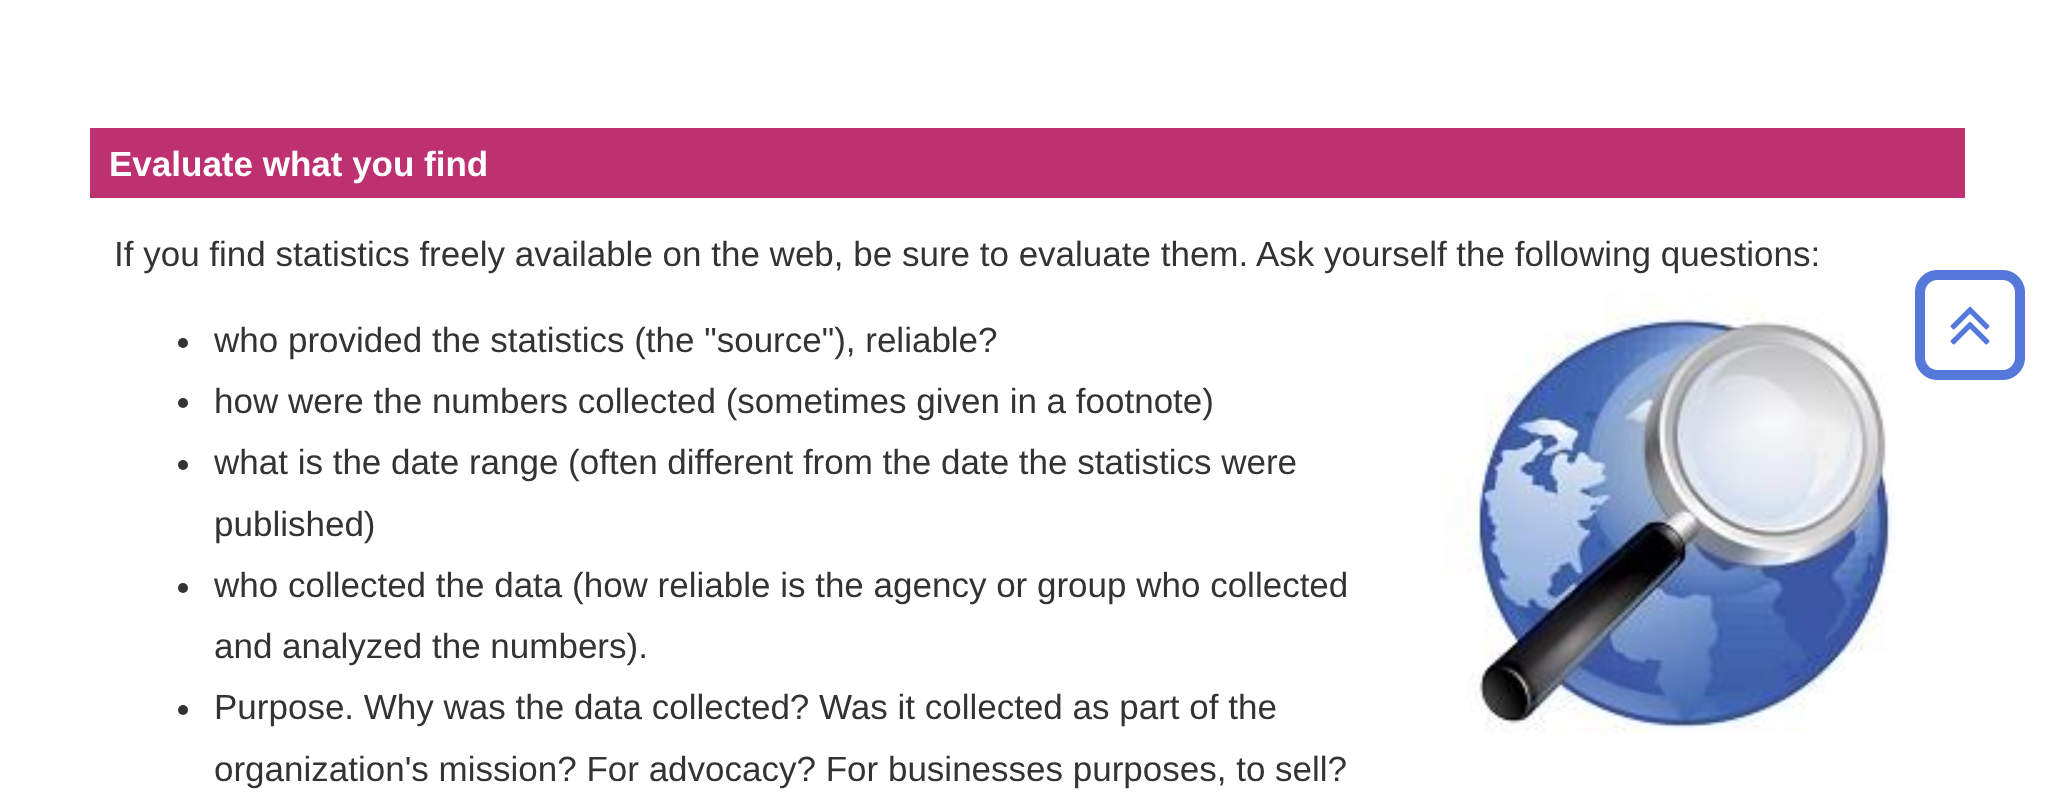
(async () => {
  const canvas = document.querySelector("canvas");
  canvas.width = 2051;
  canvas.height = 797;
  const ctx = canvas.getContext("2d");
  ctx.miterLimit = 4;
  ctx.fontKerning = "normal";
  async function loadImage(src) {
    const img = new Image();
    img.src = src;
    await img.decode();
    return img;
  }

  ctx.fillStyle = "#ffffff";
  ctx.fillRect(0, 0, 2051, 797);
  ctx.fillStyle = "#be3171";
  ctx.fillRect(90, 128, 1875, 70);
  ctx.drawImage(await loadImage("img/1.png"), 1445, 293, 450, 440);
  ctx.fillStyle = "#333333";
  ctx.beginPath();
  ctx.arc(183, 343, 5, 0, Math.PI * 2);
  ctx.fill();
  ctx.beginPath();
  ctx.arc(183, 403, 5, 0, Math.PI * 2);
  ctx.fill();
  ctx.beginPath();
  ctx.arc(183, 465, 5, 0, Math.PI * 2);
  ctx.fill();
  ctx.beginPath();
  ctx.arc(183, 588, 5, 0, Math.PI * 2);
  ctx.fill();
  ctx.beginPath();
  ctx.arc(183, 710, 5, 0, Math.PI * 2);
  ctx.fill();
  ctx.drawImage(await loadImage("img/2.png"), 1915, 270, 110, 110);
  ctx.drawImage(await loadImage("img/3.png"), 1950, 306, 40, 39);
  ctx.font = "bold 35px Liberation Sans";
  ctx.fillStyle = "#ffffff";
  ctx.fillText("Evaluate what you find", 109, 176);
  ctx.font = "35px Liberation Sans";
  ctx.fillStyle = "#333333";
  for (const [text, x, y] of [
    ["If you find statistics freely available on the web, be sure to evaluate them. Ask yourself the following questions:", 114, 266],
    ["who provided the statistics (the \"source\"), reliable?", 214, 352],
    ["how were the numbers collected (sometimes given in a footnote)", 214, 413],
    ["what is the date range (often different from the date the statistics were", 214, 474],
    ["published)", 214, 536],
    ["who collected the data (how reliable is the agency or group who collected", 214, 597],
    ["and analyzed the numbers).", 214, 658],
    ["Purpose. Why was the data collected? Was it collected as part of the", 214, 719],
    ["organization's mission? For advocacy? For businesses purposes, to sell?", 214, 781],
  ]) {
    ctx.fillText(text, x, y);
  }
})();
